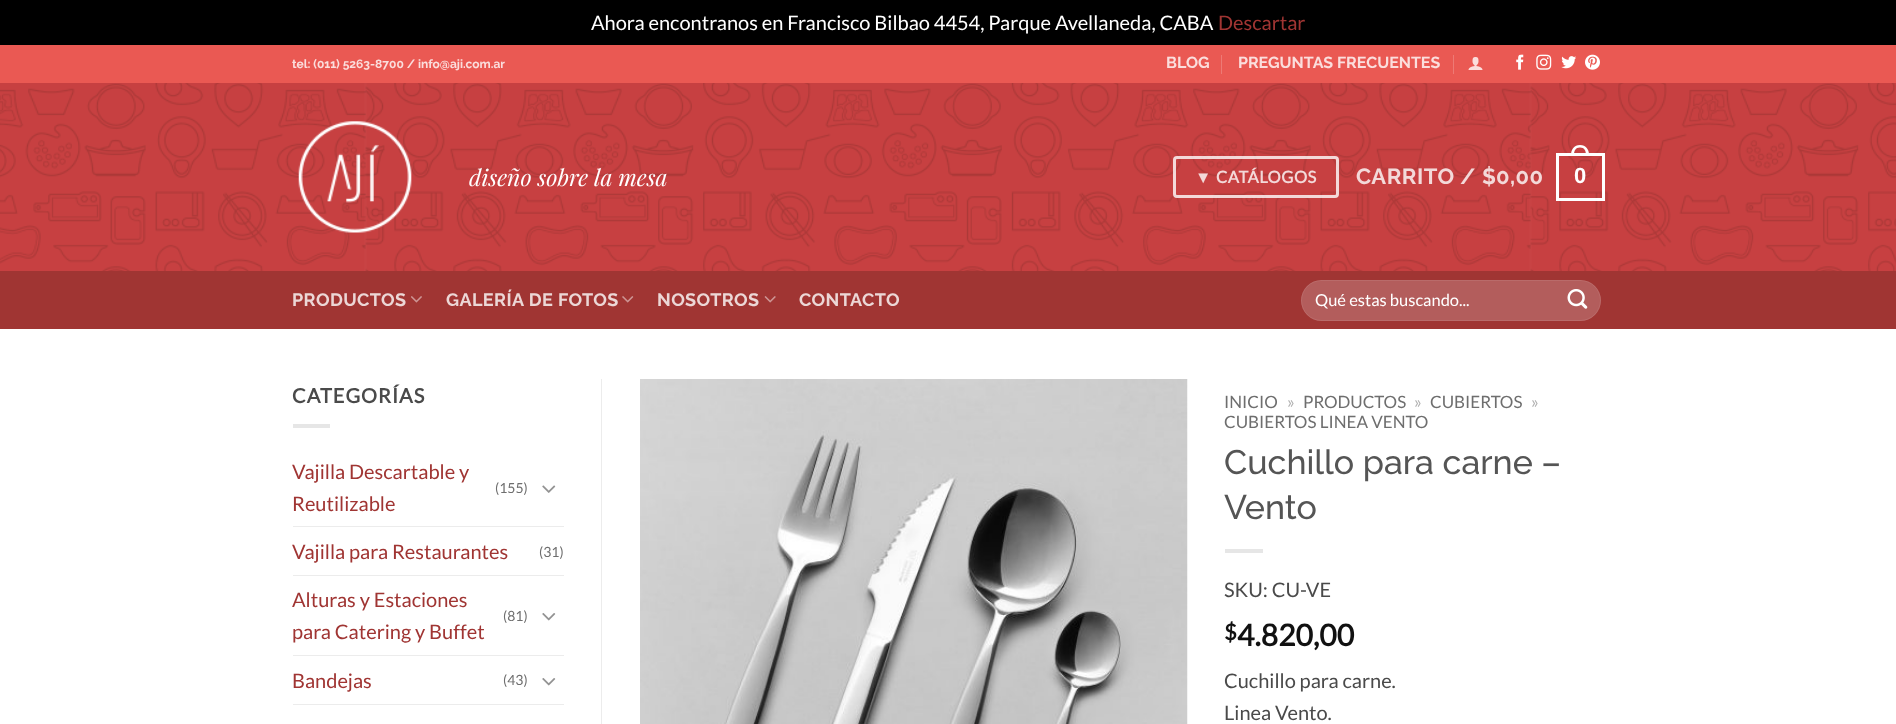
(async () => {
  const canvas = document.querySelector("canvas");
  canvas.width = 1896;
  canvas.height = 724;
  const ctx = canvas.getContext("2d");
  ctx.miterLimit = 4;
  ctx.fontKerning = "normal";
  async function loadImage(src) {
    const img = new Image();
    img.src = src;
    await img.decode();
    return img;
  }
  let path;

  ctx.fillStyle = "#000000";
  ctx.fillRect(0, 0, 1896, 724);
  for (const [x, y, w, h, color] of [
    [0, 329, 1896, 395, "#ffffff"],
    [0, 45, 1896, 38, "#ea5953"],
    [1221, 55, 1, 19, "#ee7a75"],
    [1453, 55, 1, 19, "#ee7a75"],
  ]) {
    ctx.fillStyle = color;
    ctx.fillRect(x, y, w, h);
  }
  ctx.drawImage(await loadImage("img/1.png"), 1468, 57, 15, 13);
  ctx.drawImage(await loadImage("img/2.png"), 1516, 54, 8, 16);
  ctx.drawImage(await loadImage("img/3.png"), 1536, 54, 16, 16);
  ctx.drawImage(await loadImage("img/4.png"), 1561, 56, 16, 13);
  ctx.drawImage(await loadImage("img/5.png"), 1585, 54, 15, 16);
  ctx.drawImage(await loadImage("img/6.png"), 0, 83, 1896, 188);
  ctx.drawImage(await loadImage("img/7.png"), 298, 121, 114, 112);
  ctx.beginPath();
  ctx.roundRect(1174.5, 157.5, 163, 39, 2.5);
  ctx.strokeStyle = "rgba(255, 255, 255, 0.8)";
  ctx.lineWidth = 3;
  ctx.stroke();
  ctx.strokeStyle = "#ffffff";
  ctx.strokeRect(1557.5, 154.5, 46, 45);
  ctx.fillStyle = "#ffffff";
  path = new Path2D("M1580 145C1586 145 1589 149.5 1589 155H1571C1571 149.5 1574 145 1580 145ZM1580 147.5C1584.5 147.5 1586 151 1586 155H1574C1574 151 1575.5 147.5 1580 147.5Z");
  ctx.fill(path, "evenodd");
  ctx.fillStyle = "#a03533";
  ctx.fillRect(0, 271, 1896, 58);
  ctx.drawImage(await loadImage("img/8.png"), 411, 296, 11, 7);
  ctx.drawImage(await loadImage("img/9.png"), 622, 296, 12, 7);
  ctx.drawImage(await loadImage("img/10.png"), 764, 296, 12, 7);
  ctx.fillStyle = "#b35d5c";
  ctx.beginPath();
  ctx.roundRect(1301, 280, 300, 41, 20.5);
  ctx.fill();
  ctx.beginPath();
  ctx.roundRect(1301.5, 280.5, 299, 40, 20);
  ctx.strokeStyle = "rgba(255, 255, 255, 0.09)";
  ctx.lineWidth = 1;
  ctx.stroke();
  ctx.drawImage(await loadImage("img/11.png"), 1567, 289, 21, 20);
  ctx.fillStyle = "#e6e6e6";
  ctx.fillRect(293, 424, 37, 4);
  ctx.drawImage(await loadImage("img/12.png"), 542, 485, 14, 8);
  ctx.fillStyle = "#ececec";
  ctx.fillRect(293, 526, 271, 1);
  ctx.fillRect(293, 575, 271, 1);
  ctx.drawImage(await loadImage("img/13.png"), 542, 613, 14, 8);
  ctx.fillRect(293, 655, 271, 1);
  ctx.drawImage(await loadImage("img/13.png"), 542, 678, 14, 8);
  ctx.fillRect(293, 704, 271, 1);
  ctx.fillRect(601, 379, 1, 345);
  ctx.drawImage(await loadImage("img/14.png"), 640, 379, 548, 345);
  ctx.fillStyle = "#e6e6e6";
  ctx.fillRect(1225, 549, 38, 4);
  ctx.font = "20px Lato";
  ctx.fillStyle = "#ffffff";
  ctx.fillText("Ahora encontranos en Francisco Bilbao 4454, Parque Avellaneda, CABA", 591, 30);
  ctx.fillStyle = "#a03533";
  ctx.fillText("Descartar", 1218, 30);
  ctx.font = "bold 12px Raleway";
  ctx.fillStyle = "#fbdedd";
  ctx.fillText("tel: (011) 5263-8700 / info@aji.com.ar", 292, 68);
  ctx.font = "bold 16px Raleway";
  ctx.fillText("BLOG", 1166, 68);
  ctx.fillText("PREGUNTAS FRECUENTES", 1238, 68);
  ctx.font = "italic 23px Playfair Display";
  ctx.fillStyle = "#ffffff";
  ctx.fillText("diseño sobre la mesa", 469, 186);
  ctx.letterSpacing = "0.5px";
  ctx.font = "bold 16.5px Liberation Sans";
  ctx.fillStyle = "#f3d9d9";
  ctx.fillText("▼", 1195, 183);
  ctx.font = "bold 16.5px Lato";
  ctx.fillText("CATÁLOGOS", 1216, 183);
  ctx.font = "bold 22px Raleway";
  for (const [text, x, y] of [
    ["CARRITO", 1356, 184],
    ["/", 1460, 184],
    ["$", 1482, 184],
    ["0,00", 1496, 184],
  ]) {
    ctx.fillText(text, x, y);
  }
  ctx.font = "bold 22px Liberation Sans";
  ctx.fillStyle = "#ffffff";
  ctx.fillText("0", 1574, 183);
  ctx.letterSpacing = "0.4px";
  ctx.font = "bold 18px Raleway";
  ctx.fillStyle = "#ecd7d6";
  for (const [text, x, y] of [
    ["PRODUCTOS", 292, 306],
    ["GALERÍA DE FOTOS", 446, 306],
    ["NOSOTROS", 657, 306],
    ["CONTACTO", 799, 306],
  ]) {
    ctx.fillText(text, x, y);
  }
  ctx.letterSpacing = "0px";
  ctx.font = "16.5px Lato";
  ctx.fillStyle = "#ffffff";
  ctx.fillText("Qué estas buscando...", 1315, 306);
  ctx.letterSpacing = "1px";
  ctx.font = "bold 20px Lato";
  ctx.fillStyle = "#4a4a4a";
  ctx.fillText("CATEGORÍAS", 292, 403);
  ctx.letterSpacing = "0px";
  ctx.font = "20px Lato";
  ctx.fillStyle = "#a03533";
  ctx.fillText("Vajilla Descartable y", 292, 479);
  ctx.fillText("Reutilizable", 292, 511);
  ctx.font = "14px Lato";
  ctx.fillStyle = "#6e6e6e";
  ctx.fillText("(155)", 495, 493);
  ctx.font = "20px Lato";
  ctx.fillStyle = "#a03533";
  ctx.fillText("Vajilla para Restaurantes", 292, 559);
  ctx.font = "14px Lato";
  ctx.fillStyle = "#6e6e6e";
  ctx.fillText("(31)", 539, 557);
  ctx.font = "20px Lato";
  ctx.fillStyle = "#a03533";
  ctx.fillText("Alturas y Estaciones", 292, 607);
  ctx.fillText("para Catering y Buffet", 292, 639);
  ctx.font = "14px Lato";
  ctx.fillStyle = "#6e6e6e";
  ctx.fillText("(81)", 503, 621);
  ctx.font = "20px Lato";
  ctx.fillStyle = "#a03533";
  ctx.fillText("Bandejas", 292, 688);
  ctx.font = "14px Lato";
  ctx.fillStyle = "#6e6e6e";
  ctx.fillText("(43)", 503, 685);
  ctx.font = "17px Lato";
  ctx.fillText("INICIO", 1224, 408);
  ctx.fillStyle = "#b2b2b2";
  ctx.fillText("»", 1287, 408);
  ctx.fillStyle = "#6e6e6e";
  ctx.fillText("PRODUCTOS", 1303, 408);
  ctx.fillStyle = "#b2b2b2";
  ctx.fillText("»", 1414, 408);
  ctx.fillStyle = "#6e6e6e";
  ctx.fillText("CUBIERTOS", 1430, 408);
  ctx.fillStyle = "#b2b2b2";
  ctx.fillText("»", 1531, 408);
  ctx.fillStyle = "#6e6e6e";
  ctx.fillText("CUBIERTOS LINEA VENTO", 1224, 428);
  ctx.font = "500 34px Raleway";
  ctx.fillStyle = "#555555";
  ctx.fillText("Cuchillo para carne –", 1224, 474);
  ctx.fillText("Vento", 1224, 519);
  ctx.font = "20px Lato";
  ctx.fillStyle = "#4a4a4a";
  ctx.fillText("SKU: CU-VE", 1224, 597);
  ctx.font = "bold 22px Lato";
  ctx.fillStyle = "#111111";
  ctx.fillText("$", 1224, 640);
  ctx.font = "bold 30px Lato";
  ctx.fillText("4.820,00", 1237, 646);
  ctx.font = "20px Lato";
  ctx.fillStyle = "#4a4a4a";
  ctx.fillText("Cuchillo para carne.", 1224, 688);
  ctx.fillText("Linea Vento.", 1224, 720);
})();
